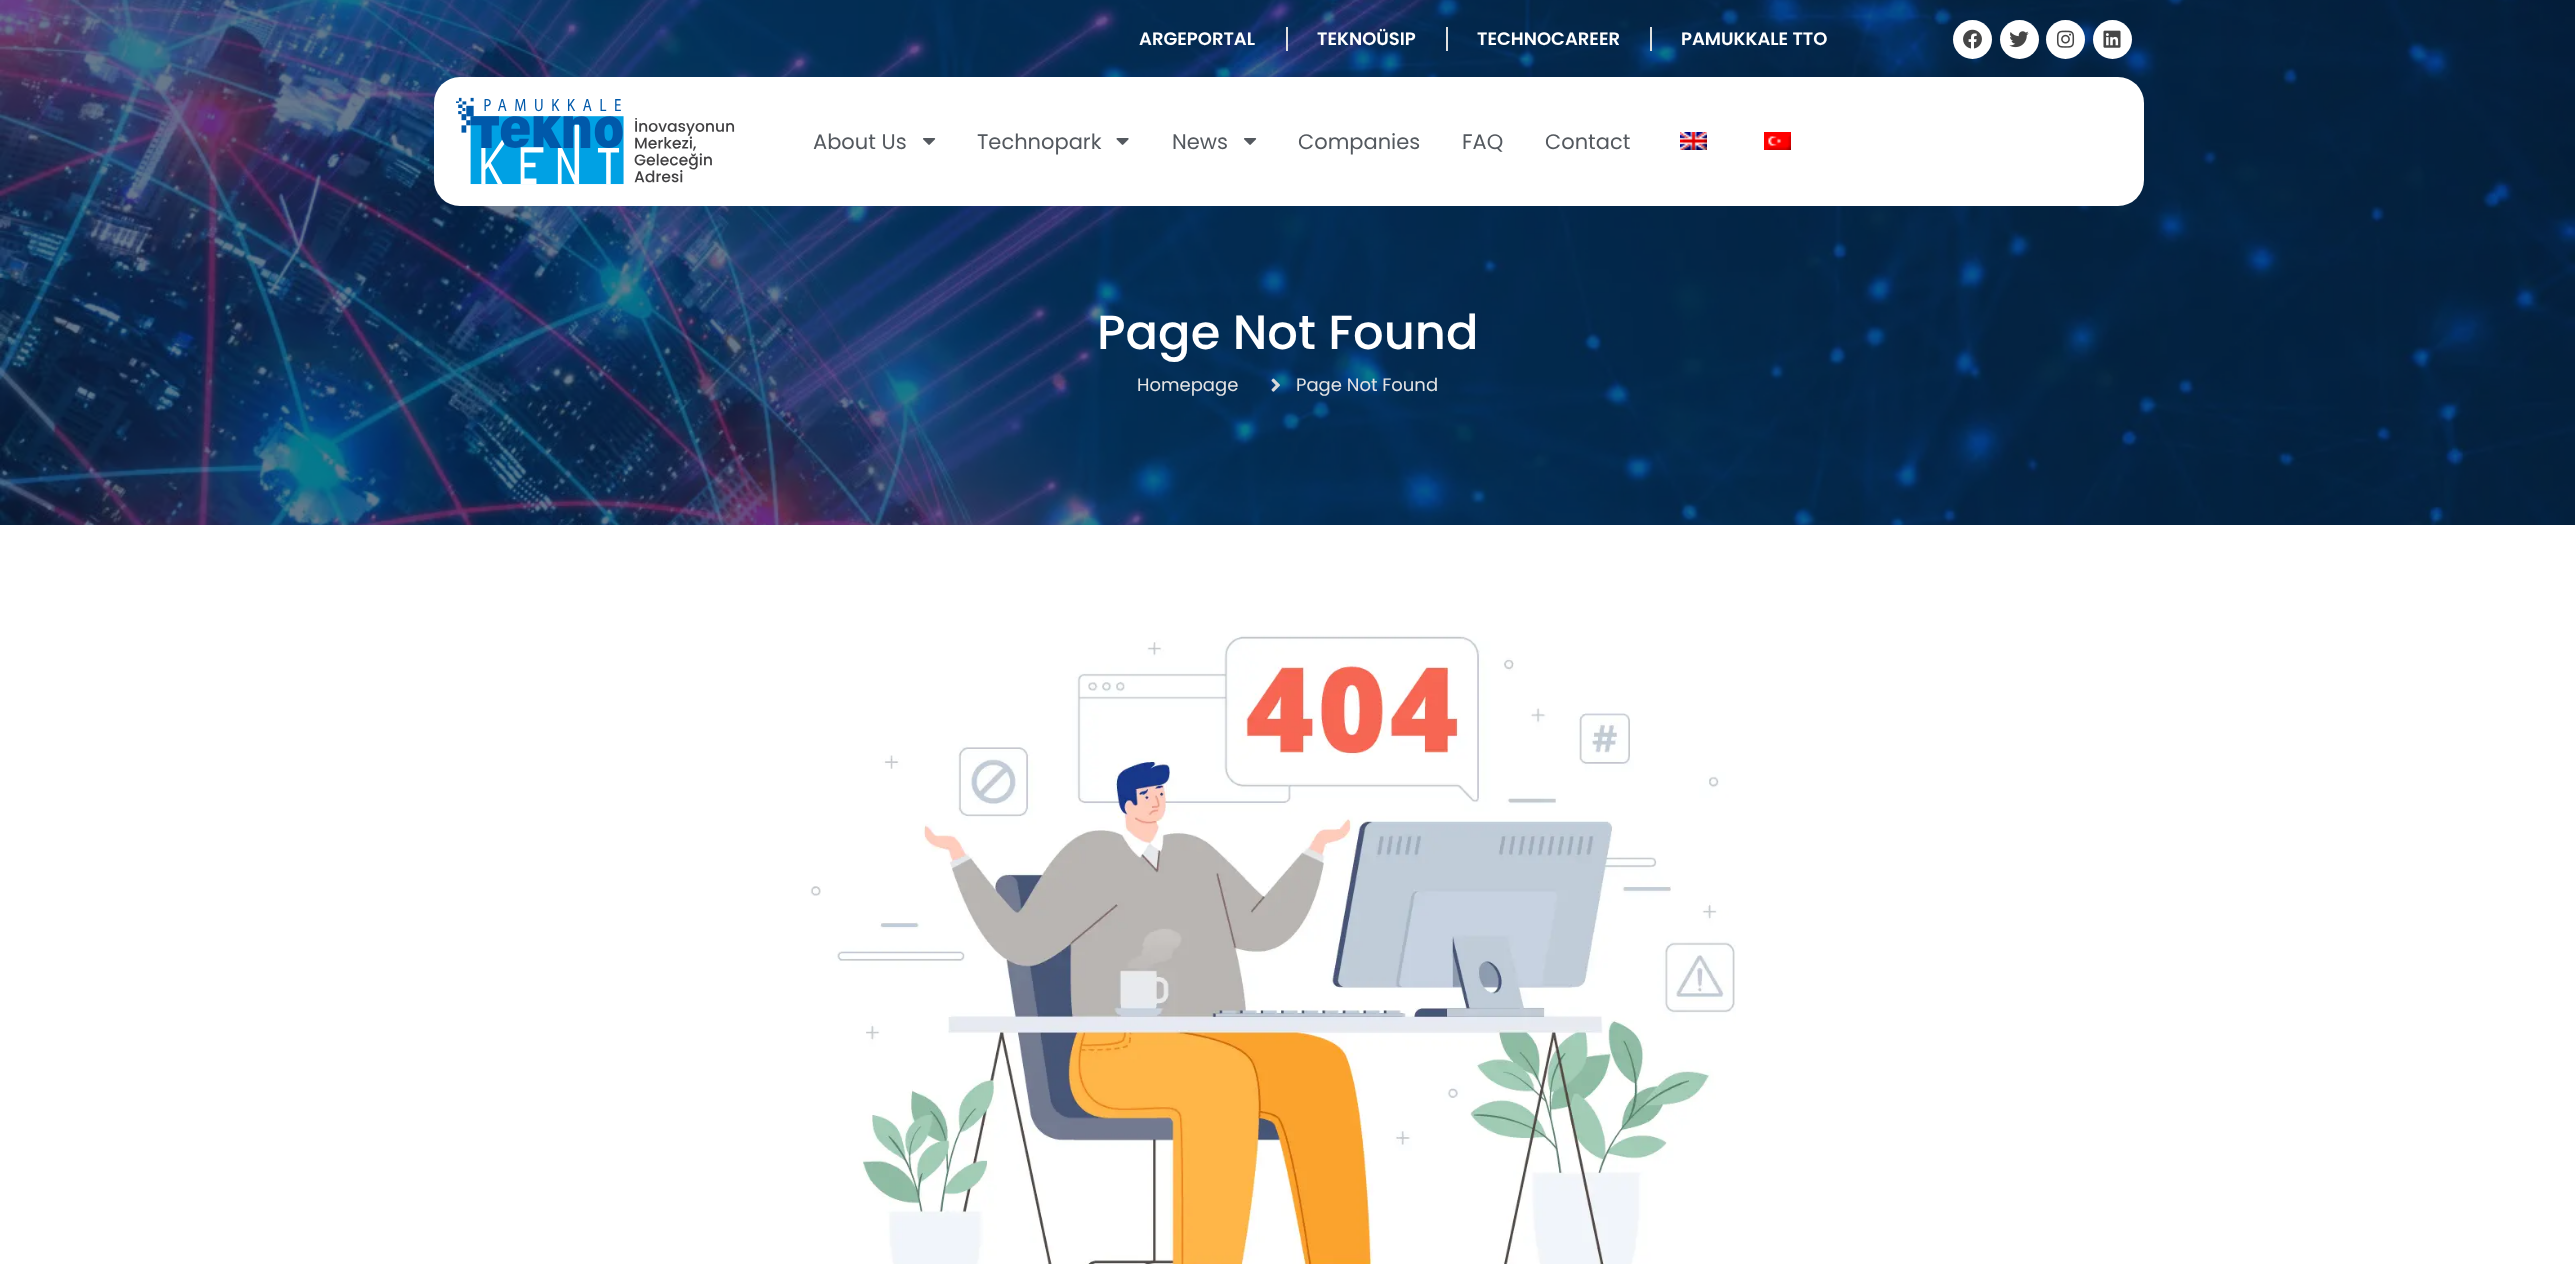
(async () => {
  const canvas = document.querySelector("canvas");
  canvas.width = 2575;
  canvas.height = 1264;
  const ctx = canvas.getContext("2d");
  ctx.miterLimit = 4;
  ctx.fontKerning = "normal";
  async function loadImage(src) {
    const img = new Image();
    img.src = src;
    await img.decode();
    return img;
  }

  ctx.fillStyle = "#ffffff";
  ctx.fillRect(0, 0, 2575, 1264);
  ctx.drawImage(await loadImage("img/10.png"), 0, 0, 2575, 525);
  for (const [x, y, w, h, color] of [
    [1286, 27, 2, 24, "#e0e0e0"],
    [1446, 27, 2, 24, "#e0e0e0"],
    [1650, 27, 2, 24, "#e0e0e0"],
  ]) {
    ctx.fillStyle = color;
    ctx.fillRect(x, y, w, h);
  }
  ctx.fillStyle = "#ffffff";
  ctx.beginPath();
  ctx.arc(1972.5, 39.5, 19.5, 0, Math.PI * 2);
  ctx.fill();
  ctx.drawImage(await loadImage("img/1.png"), 1963, 29, 19, 20);
  ctx.beginPath();
  ctx.arc(2019.5, 39.5, 19.5, 0, Math.PI * 2);
  ctx.fill();
  ctx.drawImage(await loadImage("img/2.png"), 2009, 31, 20, 17);
  ctx.beginPath();
  ctx.arc(2065.5, 39.5, 19.5, 0, Math.PI * 2);
  ctx.fill();
  ctx.drawImage(await loadImage("img/3.png"), 2056, 30, 19, 18);
  ctx.beginPath();
  ctx.arc(2112.5, 39.5, 19.5, 0, Math.PI * 2);
  ctx.fill();
  ctx.drawImage(await loadImage("img/4.png"), 2103, 30, 18, 18);
  ctx.beginPath();
  ctx.roundRect(434, 77, 1710, 129, 26);
  ctx.fill();
  ctx.drawImage(await loadImage("img/5.png"), 456, 97, 279, 88);
  ctx.drawImage(await loadImage("img/6.png"), 923, 138, 13, 7);
  ctx.drawImage(await loadImage("img/7.png"), 1116, 138, 13, 7);
  ctx.drawImage(await loadImage("img/6.png"), 1244, 138, 13, 7);
  ctx.drawImage(await loadImage("img/8.png"), 1680, 132, 27, 18);
  ctx.drawImage(await loadImage("img/9.png"), 1764, 132, 27, 18);
  ctx.drawImage(await loadImage("img/11.png"), 1271, 378, 9, 14);
  ctx.drawImage(await loadImage("img/12.png"), 810, 635, 926, 629);
  ctx.font = "600 18px Poppins";
  for (const [text, x, y] of [
    ["ARGEPORTAL", 1139, 45],
    ["TEKNOÜSIP", 1317, 45],
    ["TECHNOCAREER", 1477, 45],
    ["PAMUKKALE TTO", 1681, 45],
  ]) {
    ctx.fillText(text, x, y);
  }
  ctx.font = "21px Poppins";
  ctx.fillStyle = "#54595f";
  for (const [text, x, y] of [
    ["About Us", 813, 149],
    ["Technopark", 977, 149],
    ["News", 1172, 149],
    ["Companies", 1298, 149],
    ["FAQ", 1462, 149],
    ["Contact", 1545, 149],
  ]) {
    ctx.fillText(text, x, y);
  }
  ctx.font = "500 48px Poppins";
  ctx.fillStyle = "#ffffff";
  ctx.fillText("Page Not Found", 1097, 349);
  ctx.font = "18px Poppins";
  ctx.fillStyle = "#e4e4e4";
  ctx.fillText("Homepage", 1137, 391);
  ctx.fillText("Page Not Found", 1296, 391);
})();
